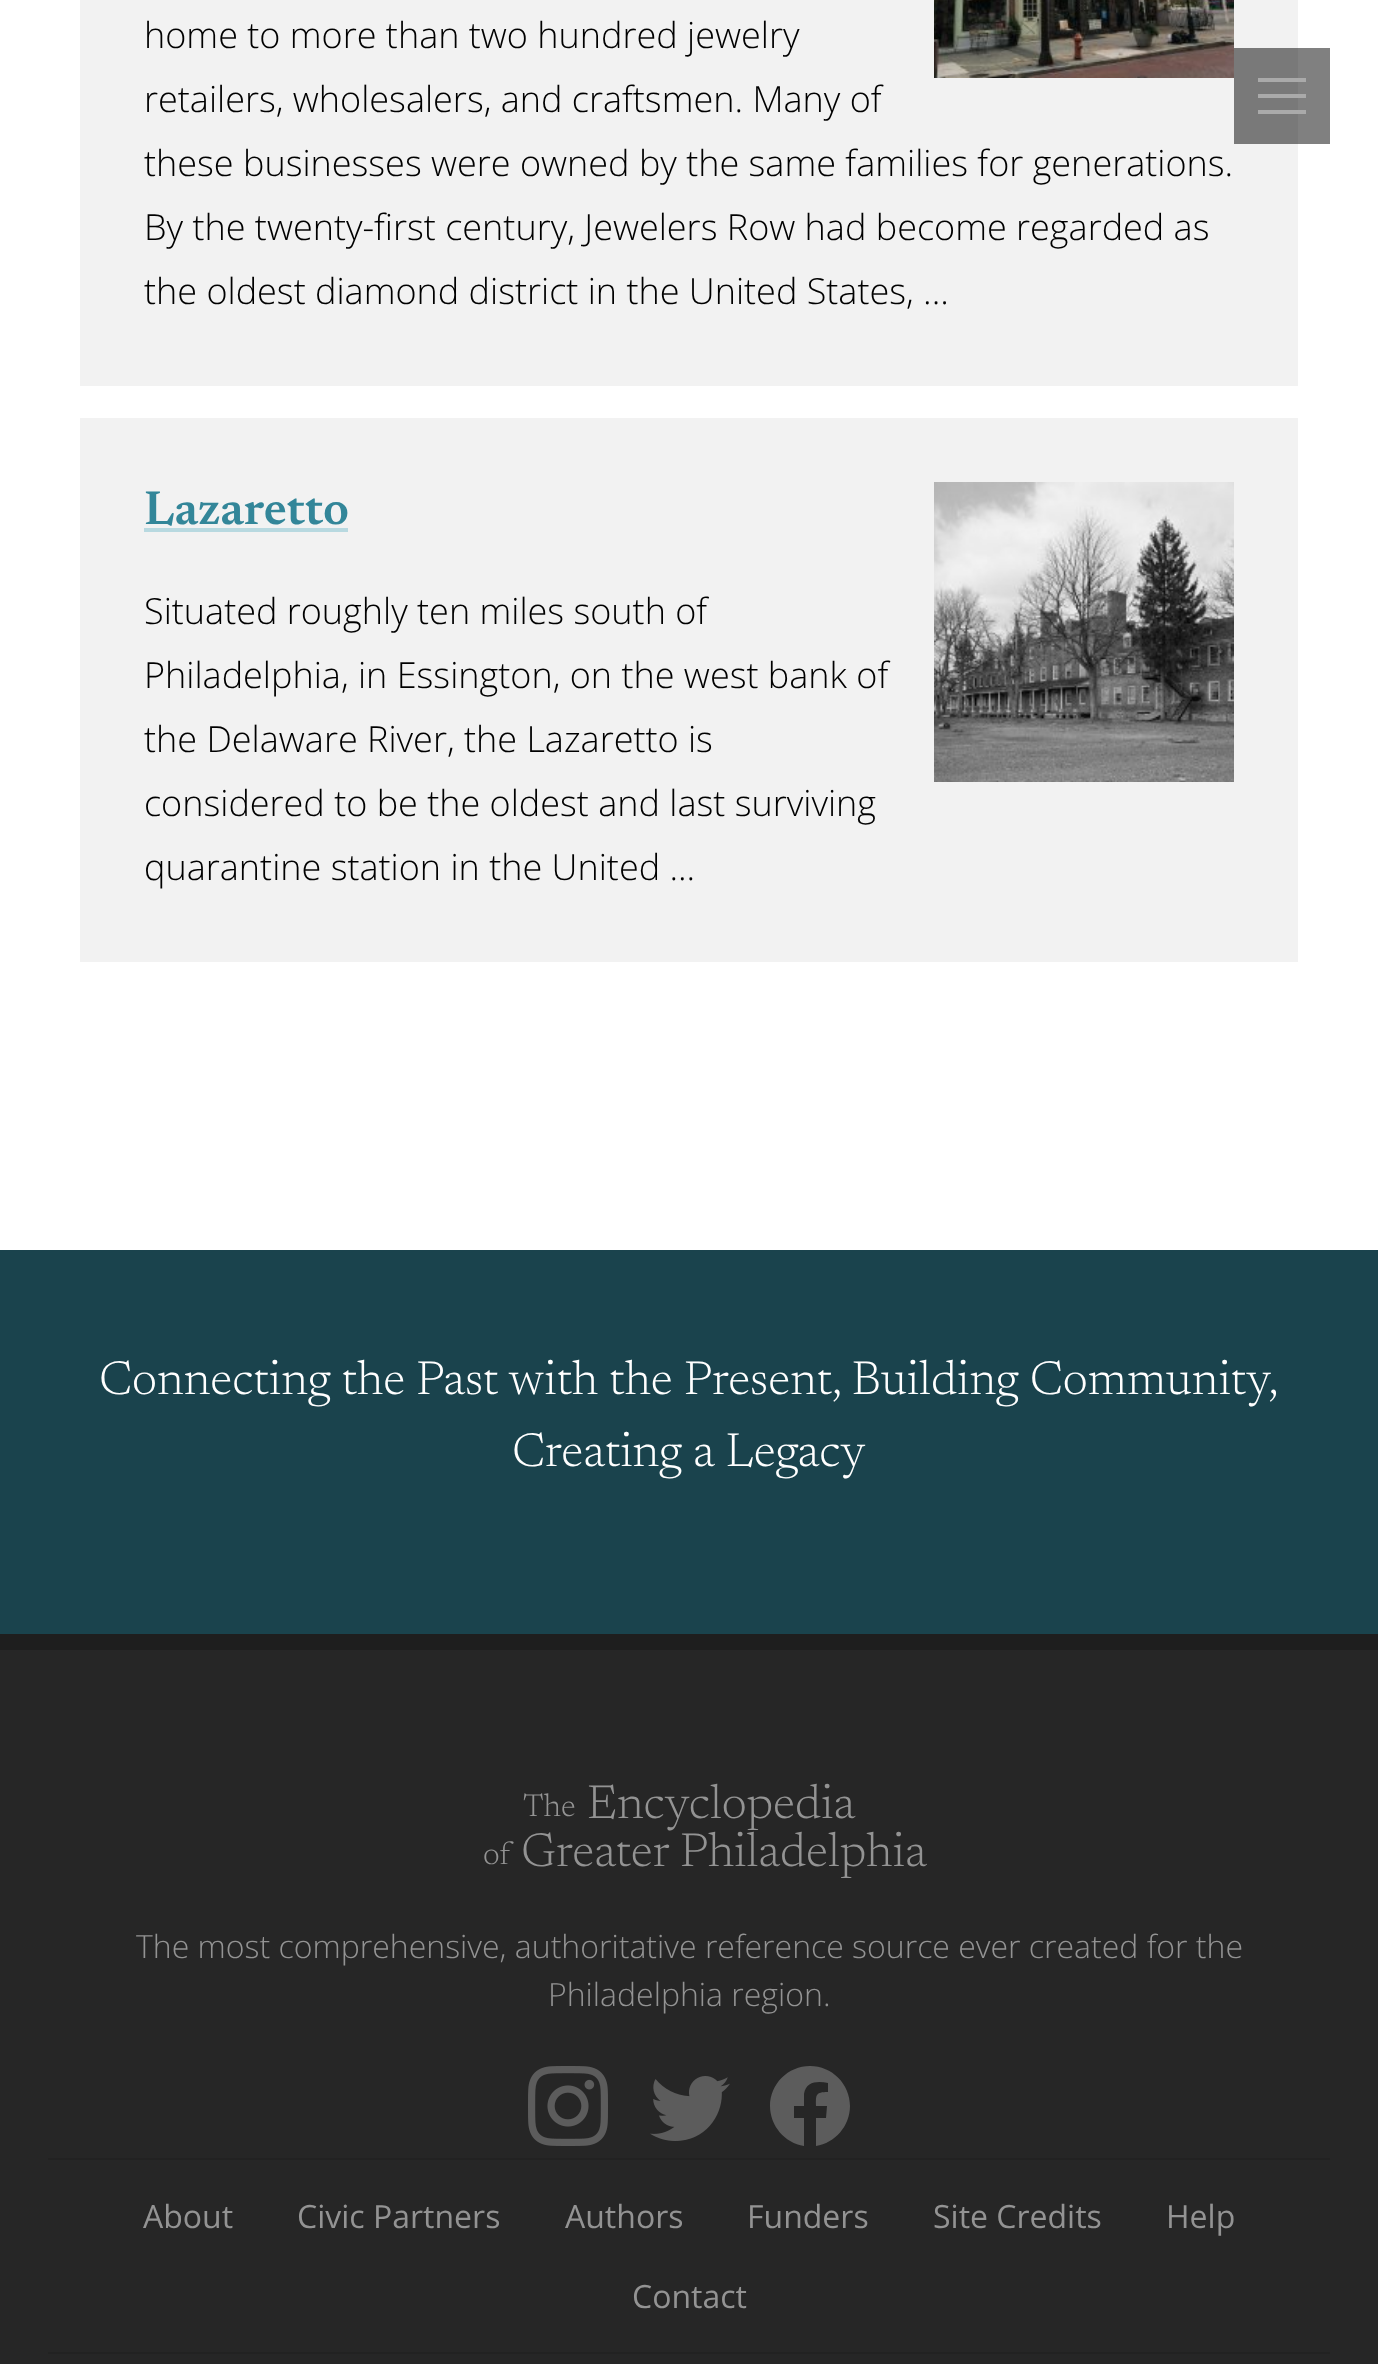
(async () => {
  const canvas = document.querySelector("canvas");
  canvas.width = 1378;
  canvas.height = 2364;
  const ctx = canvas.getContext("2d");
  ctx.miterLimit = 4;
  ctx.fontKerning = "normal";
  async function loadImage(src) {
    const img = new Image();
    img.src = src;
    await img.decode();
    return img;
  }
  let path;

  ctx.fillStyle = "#ffffff";
  ctx.fillRect(0, 0, 1378, 2364);
  for (const [x, y, w, h, color] of [
    [1298, 48, 32, 96, "#808080"],
    [80, 0, 1218, 386, "#f2f2f2"],
    [1234, 48, 64, 96, "#797979"],
  ]) {
    ctx.fillStyle = color;
    ctx.fillRect(x, y, w, h);
  }
  ctx.drawImage(await loadImage("img/1.png"), 934, 0, 300, 78);
  ctx.fillStyle = "#f2f2f2";
  ctx.fillRect(80, 418, 1218, 544);
  ctx.fillStyle = "#b8d9e0";
  ctx.fillRect(144, 528, 204, 4);
  ctx.drawImage(await loadImage("img/2.png"), 934, 482, 300, 300);
  for (const [x, y, w, h, color] of [
    [1258, 78, 48, 4, "#aaaaaa"],
    [1258, 94, 48, 4, "#aaaaaa"],
    [1258, 110, 48, 4, "#aaaaaa"],
    [0, 1250, 1378, 384, "#1a434d"],
    [0, 1650, 1378, 714, "#262626"],
    [0, 1634, 1378, 16, "#1e1e1e"],
  ]) {
    ctx.fillStyle = color;
    ctx.fillRect(x, y, w, h);
  }
  ctx.drawImage(await loadImage("img/3.png"), 528, 2066, 80, 80);
  ctx.drawImage(await loadImage("img/4.png"), 650, 2076, 80, 65);
  ctx.fillStyle = "#5c5c5c";
  path = new Path2D("M850 2106C850 2084 832 2066 810 2066C788 2066 770 2084 770 2106C770 2126 785 2143 804 2146V2118H794V2106H804V2094C806 2081 818 2081 828 2083V2092C815 2092 816 2095 816 2106H827L826 2118H816V2146C835 2143 850 2126 850 2106Z");
  ctx.fill(path);
  ctx.fillStyle = "#222222";
  ctx.fillRect(48, 2158, 1282, 2);
  ctx.fillRect(48, 2352, 1282, 2);
  ctx.font = "300 36px Open Sans";
  ctx.fillStyle = "#000000";
  for (const [text, x, y] of [
    ["home to more than two hundred jewelry", 144, 48],
    ["retailers, wholesalers, and craftsmen. Many of", 144, 112],
    ["these businesses were owned by the same families for generations.", 144, 176],
    ["By the twenty-first century, Jewelers Row had become regarded as", 144, 240],
    ["the oldest diamond district in the United States, ...", 144, 304],
  ]) {
    ctx.fillText(text, x, y);
  }
  ctx.font = "600 48px Newsreader";
  ctx.fillStyle = "#338699";
  ctx.fillText("Lazaretto", 144, 524);
  ctx.font = "300 36px Open Sans";
  ctx.fillStyle = "#000000";
  for (const [text, x, y] of [
    ["Situated roughly ten miles south of", 144, 624],
    ["Philadelphia, in Essington, on the west bank of", 144, 688],
    ["the Delaware River, the Lazaretto is", 144, 752],
    ["considered to be the oldest and last surviving", 144, 816],
    ["quarantine station in the United ...", 144, 880],
  ]) {
    ctx.fillText(text, x, y);
  }
  ctx.font = "300 48px Newsreader";
  ctx.fillStyle = "#ffffff";
  ctx.fillText("Connecting the Past with the Present, Building Community,", 99, 1394);
  ctx.fillText("Creating a Legacy", 512, 1466);
  ctx.font = "300 32px Newsreader";
  ctx.fillStyle = "#939393";
  ctx.fillText("The", 523, 1816);
  ctx.font = "300 48px Newsreader";
  ctx.fillText("Encyclopedia", 587, 1818);
  ctx.font = "300 32px Newsreader";
  ctx.fillText("of", 483, 1864);
  ctx.font = "300 48px Newsreader";
  ctx.fillText("Greater Philadelphia", 521, 1866);
  ctx.font = "300 32px Open Sans";
  ctx.fillText("The most comprehensive, authoritative reference source ever created for the", 136, 1958);
  ctx.fillText("Philadelphia region.", 548, 2006);
  ctx.font = "32px Open Sans";
  for (const [text, x, y] of [
    ["About", 143, 2228],
    ["Civic Partners", 297, 2228],
    ["Authors", 565, 2228],
    ["Funders", 747, 2228],
    ["Site Credits", 933, 2228],
    ["Help", 1166, 2228],
    ["Contact", 632, 2308],
  ]) {
    ctx.fillText(text, x, y);
  }
})();
